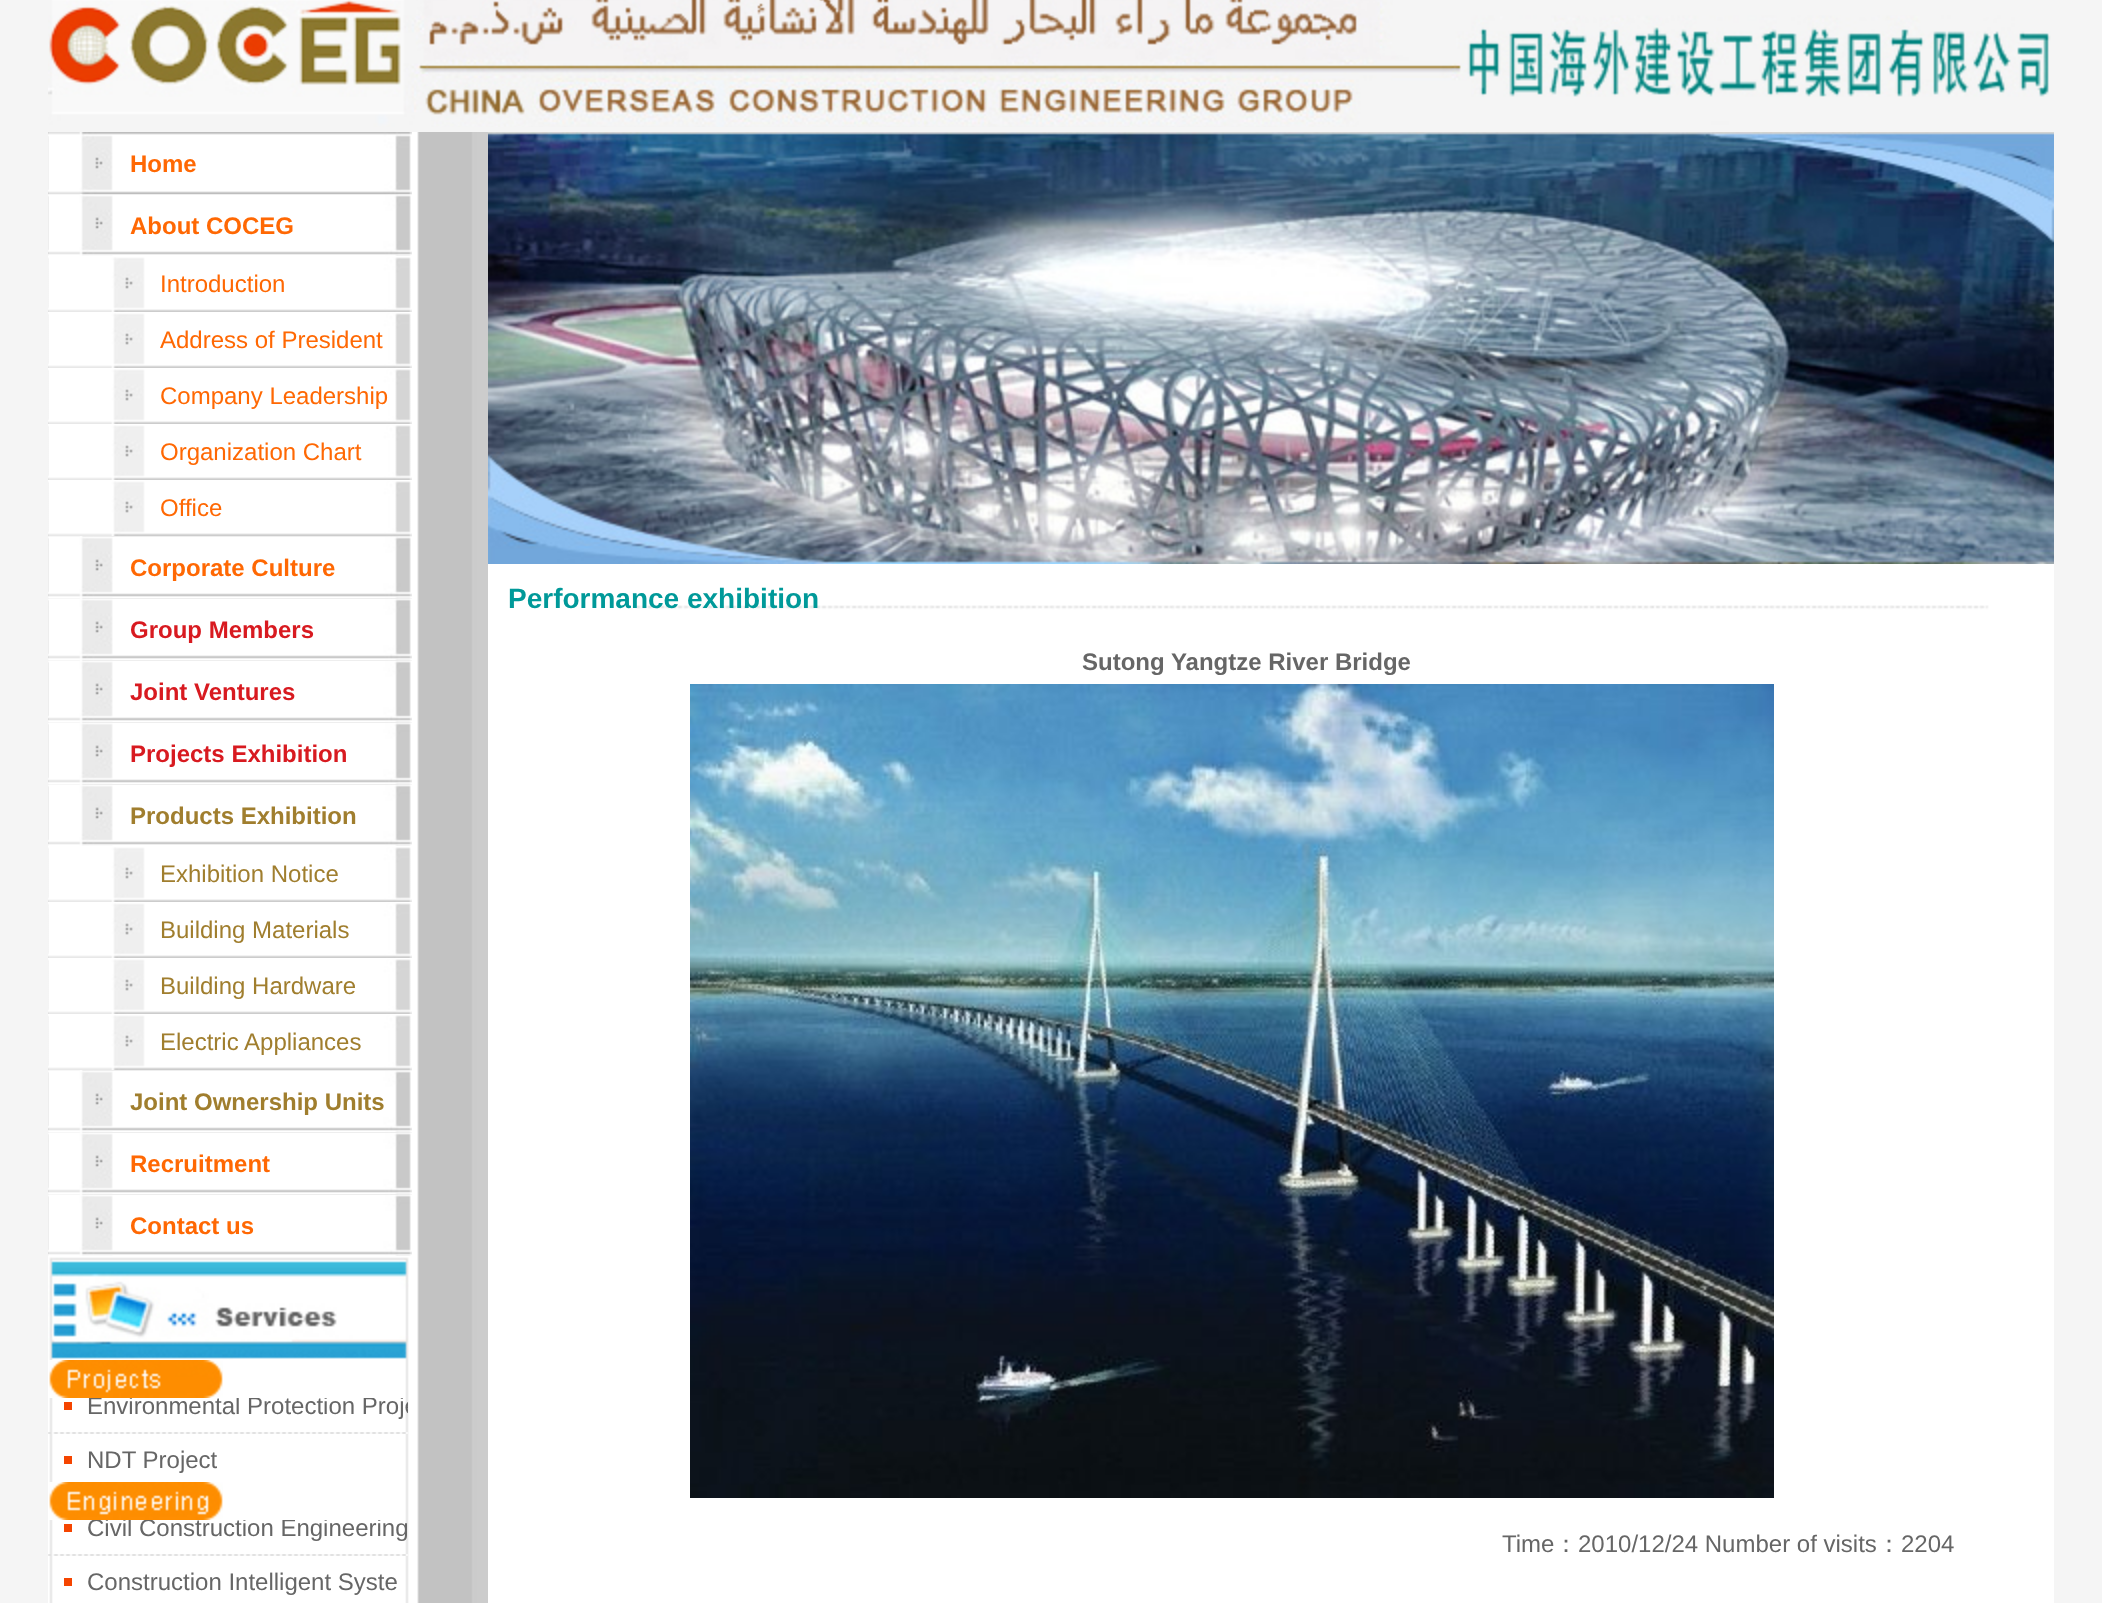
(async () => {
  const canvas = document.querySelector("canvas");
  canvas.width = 2102;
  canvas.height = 1603;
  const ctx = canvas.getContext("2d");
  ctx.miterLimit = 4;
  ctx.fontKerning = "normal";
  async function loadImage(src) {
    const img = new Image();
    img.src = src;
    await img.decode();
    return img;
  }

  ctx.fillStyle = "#f5f5f5";
  ctx.fillRect(0, 0, 2102, 1603);
  ctx.drawImage(await loadImage("img/1.png"), 48, 0, 2003, 127);
  ctx.fillStyle = "#ffffff";
  ctx.fillRect(48, 256, 364, 1104);
  ctx.drawImage(await loadImage("img/2.png"), 48, 132, 364, 62);
  ctx.drawImage(await loadImage("img/3.png"), 48, 194, 364, 62);
  ctx.drawImage(await loadImage("img/4.png"), 48, 257, 364, 55);
  ctx.drawImage(await loadImage("img/4.png"), 48, 313, 364, 55);
  ctx.drawImage(await loadImage("img/4.png"), 48, 369, 364, 55);
  ctx.drawImage(await loadImage("img/4.png"), 48, 425, 364, 55);
  ctx.drawImage(await loadImage("img/4.png"), 48, 481, 364, 55);
  ctx.drawImage(await loadImage("img/3.png"), 48, 536, 364, 62);
  ctx.drawImage(await loadImage("img/3.png"), 48, 598, 364, 62);
  ctx.drawImage(await loadImage("img/3.png"), 48, 660, 364, 62);
  ctx.drawImage(await loadImage("img/3.png"), 48, 722, 364, 62);
  ctx.drawImage(await loadImage("img/3.png"), 48, 784, 364, 62);
  ctx.drawImage(await loadImage("img/4.png"), 48, 847, 364, 55);
  ctx.drawImage(await loadImage("img/4.png"), 48, 903, 364, 55);
  ctx.drawImage(await loadImage("img/4.png"), 48, 959, 364, 55);
  ctx.drawImage(await loadImage("img/4.png"), 48, 1015, 364, 55);
  ctx.drawImage(await loadImage("img/3.png"), 48, 1070, 364, 62);
  ctx.drawImage(await loadImage("img/3.png"), 48, 1132, 364, 62);
  ctx.drawImage(await loadImage("img/3.png"), 48, 1194, 364, 62);
  ctx.drawImage(await loadImage("img/5.png"), 48, 1257, 361, 103);
  ctx.drawImage(await loadImage("img/6.png"), 48, 1360, 364, 243);
  ctx.drawImage(await loadImage("img/7.png"), 49, 1360, 174, 38);
  ctx.fillStyle = "#f54500";
  ctx.fillRect(64, 1402, 8, 8);
  ctx.drawImage(await loadImage("img/8.png"), 48, 1432, 360, 2);
  ctx.fillRect(64, 1456, 8, 8);
  ctx.drawImage(await loadImage("img/9.png"), 49, 1482, 174, 38);
  ctx.fillRect(64, 1524, 8, 8);
  ctx.drawImage(await loadImage("img/8.png"), 48, 1554, 360, 2);
  ctx.fillRect(64, 1578, 8, 8);
  ctx.drawImage(await loadImage("img/10.png"), 412, 132, 76, 1471);
  ctx.fillStyle = "#ffffff";
  ctx.fillRect(488, 564, 1566, 1039);
  ctx.drawImage(await loadImage("img/11.png"), 488, 132, 1566, 432);
  ctx.drawImage(await loadImage("img/12.png"), 630, 605, 1359, 5);
  ctx.drawImage(await loadImage("img/13.png"), 690, 684, 1084, 814);
  ctx.font = "bold 24px Liberation Sans";
  ctx.fillStyle = "#ff6803";
  ctx.fillText("Home", 130, 172);
  ctx.fillText("About COCEG", 130, 234);
  ctx.font = "24px Liberation Sans";
  for (const [text, x, y] of [
    ["Introduction", 160, 292],
    ["Address of President", 160, 348],
    ["Company Leadership", 160, 404],
    ["Organization Chart", 160, 460],
    ["Office", 160, 516],
  ]) {
    ctx.fillText(text, x, y);
  }
  ctx.font = "bold 24px Liberation Sans";
  ctx.fillText("Corporate Culture", 130, 576);
  ctx.fillStyle = "#d81a20";
  for (const [text, x, y] of [
    ["Group Members", 130, 638],
    ["Joint Ventures", 130, 700],
    ["Projects Exhibition", 130, 762],
  ]) {
    ctx.fillText(text, x, y);
  }
  ctx.fillStyle = "#a07e2e";
  ctx.fillText("Products Exhibition", 130, 824);
  ctx.font = "24px Liberation Sans";
  for (const [text, x, y] of [
    ["Exhibition Notice", 160, 882],
    ["Building Materials", 160, 938],
    ["Building Hardware", 160, 994],
    ["Electric Appliances", 160, 1050],
  ]) {
    ctx.fillText(text, x, y);
  }
  ctx.font = "bold 24px Liberation Sans";
  ctx.fillText("Joint Ownership Units", 130, 1110);
  ctx.fillStyle = "#ff6803";
  ctx.fillText("Recruitment", 130, 1172);
  ctx.fillText("Contact us", 130, 1234);
  ctx.save();
  ctx.beginPath();
  ctx.rect(48, 1398, 360, 84);
  ctx.clip();
  ctx.font = "24px Liberation Sans";
  ctx.fillStyle = "#666666";
  ctx.fillText("Environmental Protection Proje", 87, 1414);
  ctx.restore();
  ctx.font = "24px Liberation Sans";
  ctx.fillStyle = "#666666";
  ctx.fillText("NDT Project", 87, 1468);
  ctx.save();
  ctx.beginPath();
  ctx.rect(48, 1520, 360, 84);
  ctx.clip();
  ctx.fillText("Civil Construction Engineering", 87, 1536);
  ctx.restore();
  ctx.fillText("Construction Intelligent Syste", 87, 1590);
  ctx.font = "bold 28px Liberation Sans";
  ctx.fillStyle = "#009999";
  ctx.fillText("Performance exhibition", 508, 608);
  ctx.font = "bold 24px Liberation Sans";
  ctx.fillStyle = "#666666";
  ctx.fillText("Sutong Yangtze River Bridge", 1082, 670);
  ctx.font = "24px Liberation Sans";
  ctx.fillText("Time", 1502, 1552);
  ctx.font = "500 24px WenQuanYi Zen Hei";
  ctx.fillText("：", 1554, 1552);
  ctx.font = "24px Liberation Sans";
  ctx.fillText("2010/12/24 Number of visits", 1578, 1552);
  ctx.font = "500 24px WenQuanYi Zen Hei";
  ctx.fillText("：", 1877, 1552);
  ctx.font = "24px Liberation Sans";
  ctx.fillText("2204", 1901, 1552);
})();
